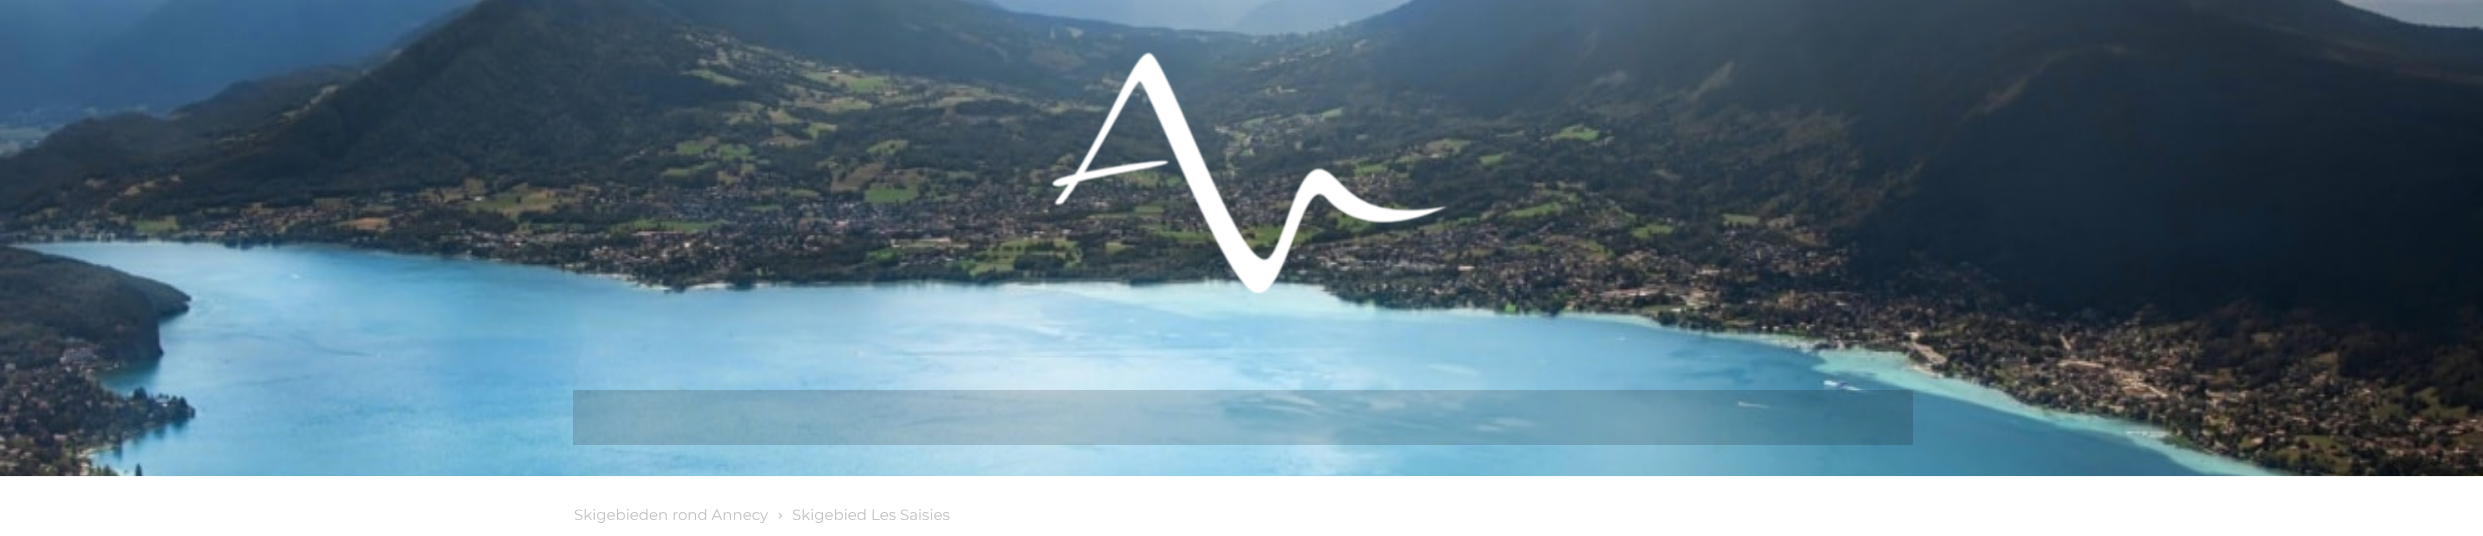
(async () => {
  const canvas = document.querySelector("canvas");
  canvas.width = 2483;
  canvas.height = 536;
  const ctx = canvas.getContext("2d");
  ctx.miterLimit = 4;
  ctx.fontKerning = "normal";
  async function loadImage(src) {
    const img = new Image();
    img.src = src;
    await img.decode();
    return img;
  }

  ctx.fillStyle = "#ffffff";
  ctx.fillRect(0, 0, 2483, 536);
  ctx.drawImage(await loadImage("img/1.png"), 0, 0, 2483, 477);
  ctx.drawImage(await loadImage("img/2.png"), 1051, 52, 397, 242);
  ctx.fillStyle = "rgba(0, 0, 0, 0.15)";
  ctx.fillRect(573, 390, 1340, 55);
  ctx.drawImage(await loadImage("img/3.png"), 778, 512, 4, 7);
  ctx.font = "15px Montserrat";
  ctx.fillStyle = "#c3c3c3";
  ctx.fillText("Skigebieden rond Annecy", 574, 520);
  ctx.fillText("Skigebied Les Saisies", 792, 520);
})();
